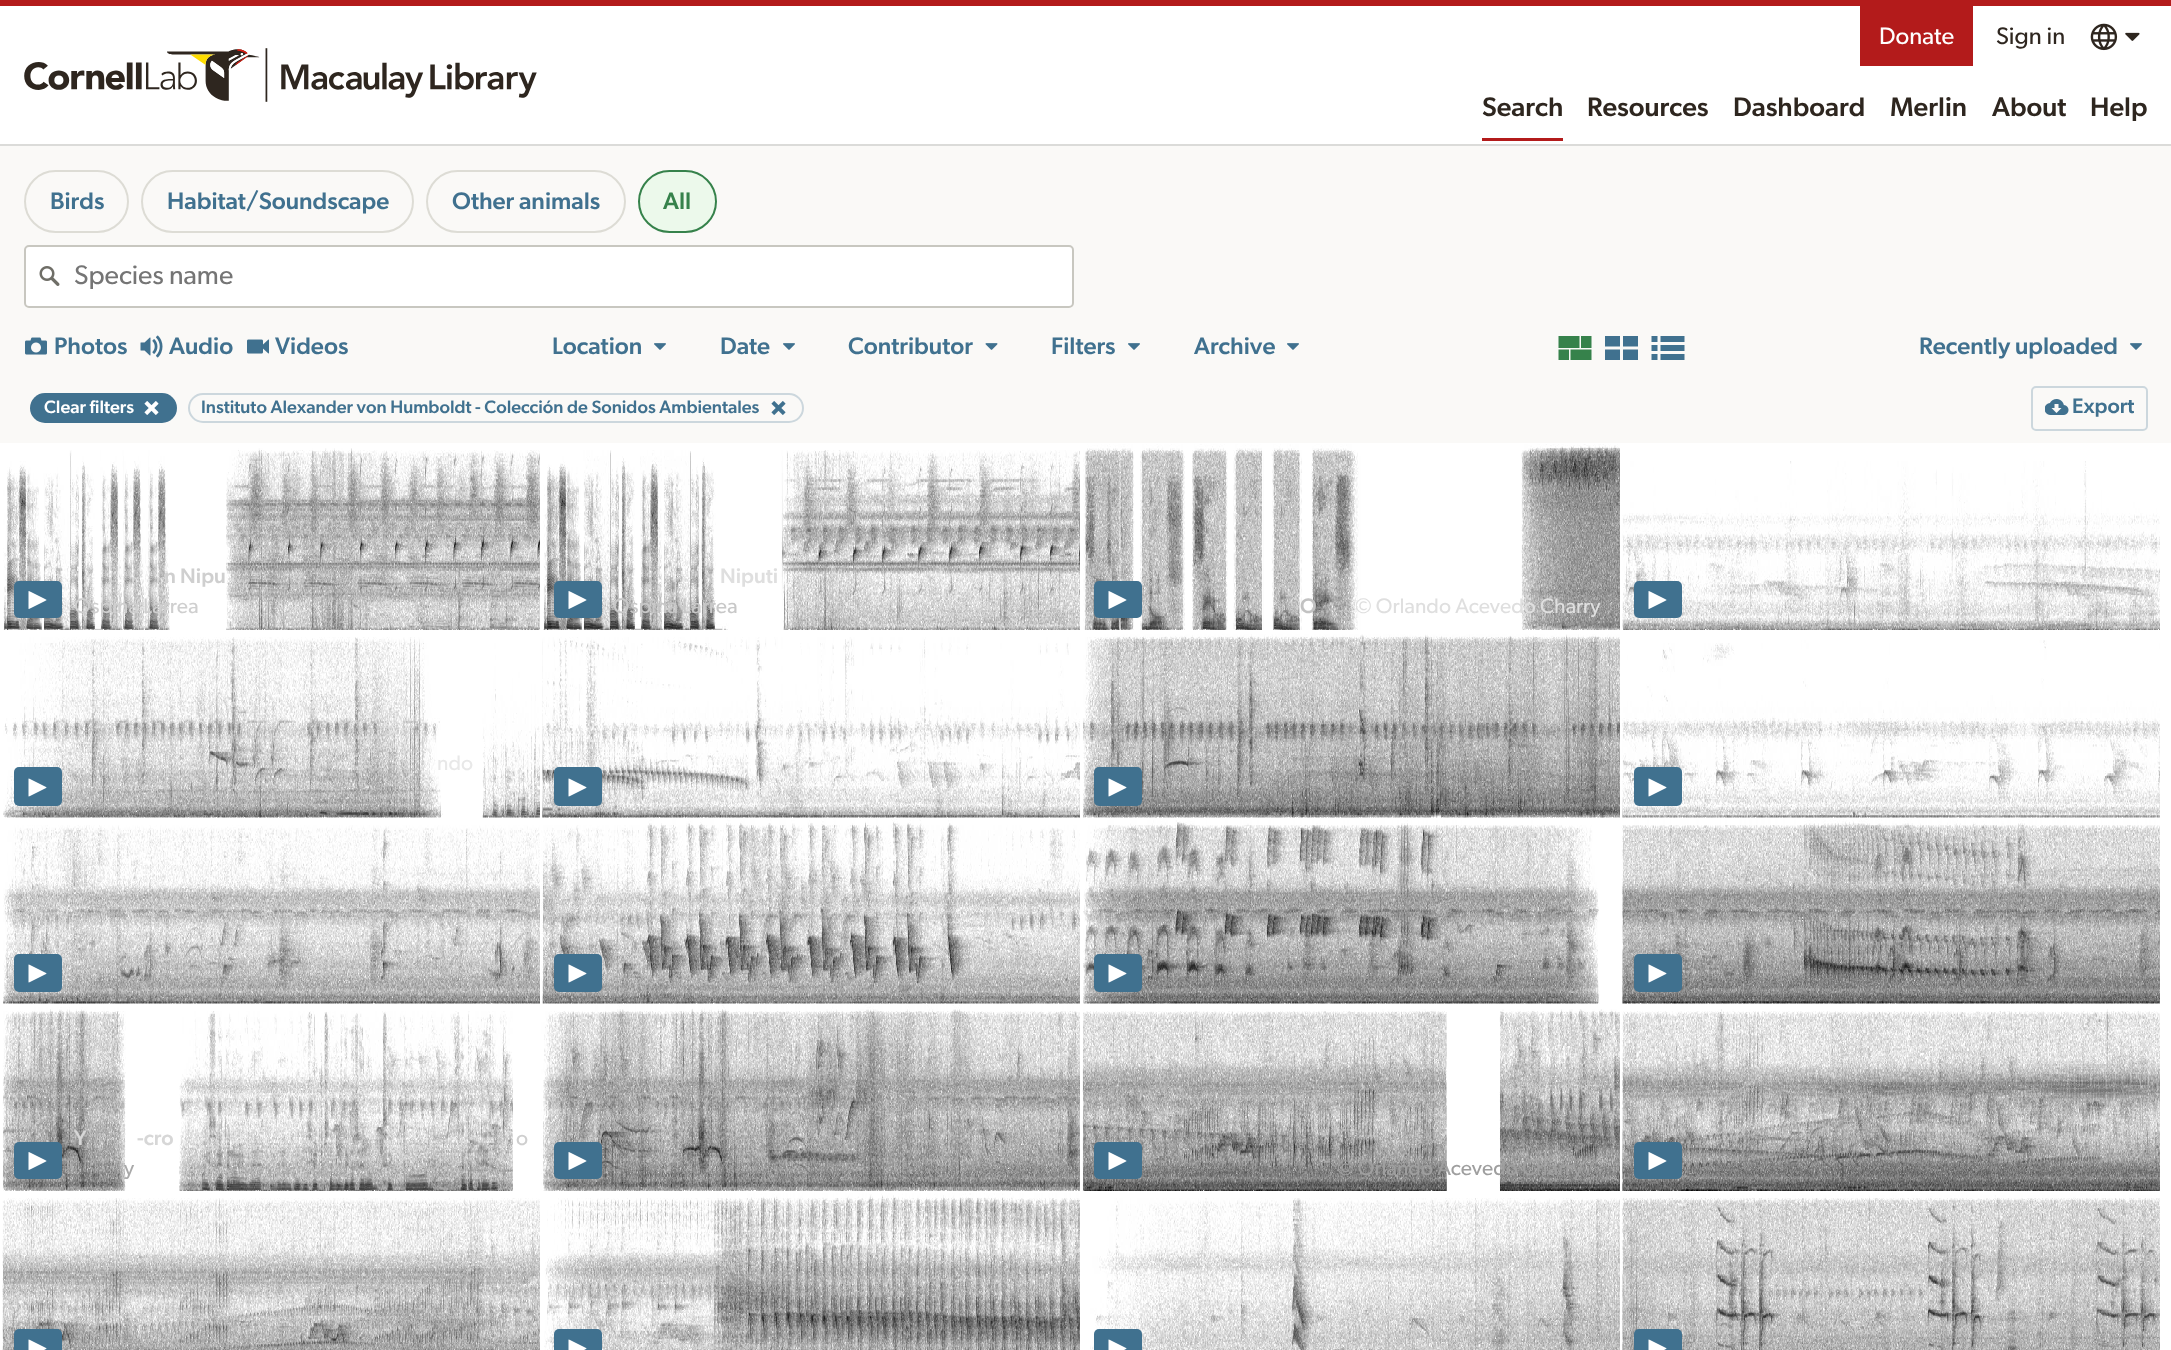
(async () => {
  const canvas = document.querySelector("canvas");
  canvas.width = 2171;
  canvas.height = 1350;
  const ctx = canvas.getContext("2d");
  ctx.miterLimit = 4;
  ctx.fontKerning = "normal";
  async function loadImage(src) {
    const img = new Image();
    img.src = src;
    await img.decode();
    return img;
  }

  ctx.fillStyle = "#ffffff";
  ctx.fillRect(0, 0, 2171, 1350);
  ctx.fillStyle = "#b31b1b";
  ctx.fillRect(0, 0, 2171, 6);
  ctx.fillStyle = "#dbdbd9";
  ctx.fillRect(0, 144, 2171, 2);
  ctx.drawImage(await loadImage("img/1.png"), 24, 48, 513, 54);
  ctx.fillStyle = "#b31b1b";
  ctx.fillRect(1860, 6, 113, 60);
  ctx.drawImage(await loadImage("img/2.png"), 2090, 23, 28, 28);
  ctx.drawImage(await loadImage("img/3.png"), 2125, 32, 15, 9);
  ctx.fillRect(1482, 138, 81, 3);
  ctx.fillStyle = "#faf9f7";
  ctx.fillRect(0, 146, 2171, 297);
  ctx.beginPath();
  ctx.roundRect(25, 171, 103, 61, 30.5);
  ctx.strokeStyle = "#dddcd5";
  ctx.lineWidth = 2;
  ctx.stroke();
  ctx.beginPath();
  ctx.roundRect(142, 171, 271, 61, 30.5);
  ctx.stroke();
  ctx.beginPath();
  ctx.roundRect(427, 171, 198, 61, 30.5);
  ctx.stroke();
  ctx.fillStyle = "#ecf9eb";
  ctx.beginPath();
  ctx.roundRect(639, 171, 77, 61, 30.5);
  ctx.fill();
  ctx.strokeStyle = "#36824b";
  ctx.stroke();
  ctx.fillStyle = "#ffffff";
  ctx.beginPath();
  ctx.roundRect(25, 246, 1048, 61, 4);
  ctx.fill();
  ctx.strokeStyle = "#c8c7c0";
  ctx.stroke();
  ctx.drawImage(await loadImage("img/4.png"), 39, 266, 21, 20);
  ctx.drawImage(await loadImage("img/5.png"), 25, 337, 22, 18);
  ctx.drawImage(await loadImage("img/6.png"), 140, 335, 23, 23);
  ctx.drawImage(await loadImage("img/7.png"), 247, 339, 22, 15);
  ctx.drawImage(await loadImage("img/8.png"), 654, 343, 12, 7);
  ctx.drawImage(await loadImage("img/8.png"), 783, 343, 12, 7);
  ctx.drawImage(await loadImage("img/9.png"), 985, 343, 13, 7);
  ctx.drawImage(await loadImage("img/8.png"), 1128, 343, 12, 7);
  ctx.drawImage(await loadImage("img/8.png"), 1287, 343, 12, 7);
  ctx.drawImage(await loadImage("img/10.png"), 1558, 336, 34, 24);
  ctx.drawImage(await loadImage("img/11.png"), 1605, 336, 33, 24);
  ctx.drawImage(await loadImage("img/12.png"), 1651, 336, 34, 24);
  ctx.drawImage(await loadImage("img/8.png"), 2130, 343, 12, 7);
  ctx.fillStyle = "#40718f";
  ctx.beginPath();
  ctx.roundRect(30, 393, 147, 30, 15);
  ctx.fill();
  ctx.drawImage(await loadImage("img/13.png"), 144, 401, 15, 14);
  ctx.beginPath();
  ctx.roundRect(189, 394, 614, 28, 14);
  ctx.strokeStyle = "#ccd7dd";
  ctx.stroke();
  ctx.drawImage(await loadImage("img/14.png"), 771, 401, 15, 14);
  ctx.beginPath();
  ctx.roundRect(2032, 387, 115, 43, 4);
  ctx.stroke();
  ctx.drawImage(await loadImage("img/15.png"), 2045, 399, 24, 16);
  ctx.drawImage(await loadImage("img/16.png"), 3, 448, 537, 182);
  ctx.beginPath();
  ctx.roundRect(14, 581, 48, 37, 5);
  ctx.fill();
  ctx.drawImage(await loadImage("img/17.png"), 28, 591, 19, 18);
  ctx.drawImage(await loadImage("img/18.png"), 543, 450, 537, 180);
  ctx.beginPath();
  ctx.roundRect(554, 581, 48, 37, 5);
  ctx.fill();
  ctx.drawImage(await loadImage("img/17.png"), 568, 591, 19, 18);
  ctx.drawImage(await loadImage("img/19.png"), 1083, 444, 537, 186);
  ctx.beginPath();
  ctx.roundRect(1094, 581, 48, 37, 5);
  ctx.fill();
  ctx.drawImage(await loadImage("img/17.png"), 1108, 591, 19, 18);
  ctx.drawImage(await loadImage("img/20.png"), 1622, 461, 538, 169);
  ctx.beginPath();
  ctx.roundRect(1634, 581, 48, 37, 5);
  ctx.fill();
  ctx.drawImage(await loadImage("img/17.png"), 1648, 591, 19, 18);
  ctx.drawImage(await loadImage("img/21.png"), 3, 637, 537, 181);
  ctx.beginPath();
  ctx.roundRect(14, 767, 48, 39, 5);
  ctx.fill();
  ctx.drawImage(await loadImage("img/22.png"), 28, 778, 19, 19);
  ctx.drawImage(await loadImage("img/23.png"), 542, 637, 538, 181);
  ctx.beginPath();
  ctx.roundRect(554, 767, 48, 39, 5);
  ctx.fill();
  ctx.drawImage(await loadImage("img/22.png"), 568, 778, 19, 19);
  ctx.drawImage(await loadImage("img/24.png"), 1082, 634, 538, 184);
  ctx.beginPath();
  ctx.roundRect(1094, 767, 48, 39, 5);
  ctx.fill();
  ctx.drawImage(await loadImage("img/22.png"), 1108, 778, 19, 19);
  ctx.drawImage(await loadImage("img/25.png"), 1622, 640, 538, 178);
  ctx.beginPath();
  ctx.roundRect(1634, 767, 48, 39, 5);
  ctx.fill();
  ctx.drawImage(await loadImage("img/22.png"), 1648, 778, 19, 19);
  ctx.drawImage(await loadImage("img/26.png"), 3, 825, 537, 179);
  ctx.beginPath();
  ctx.roundRect(14, 954, 48, 38, 5);
  ctx.fill();
  ctx.drawImage(await loadImage("img/22.png"), 28, 964, 19, 19);
  ctx.drawImage(await loadImage("img/27.png"), 541, 819, 539, 185);
  ctx.beginPath();
  ctx.roundRect(554, 954, 48, 38, 5);
  ctx.fill();
  ctx.drawImage(await loadImage("img/22.png"), 568, 964, 19, 19);
  ctx.drawImage(await loadImage("img/28.png"), 1083, 820, 517, 184);
  ctx.beginPath();
  ctx.roundRect(1094, 954, 48, 38, 5);
  ctx.fill();
  ctx.drawImage(await loadImage("img/22.png"), 1108, 964, 19, 19);
  ctx.drawImage(await loadImage("img/29.png"), 1621, 819, 539, 185);
  ctx.beginPath();
  ctx.roundRect(1634, 954, 48, 38, 5);
  ctx.fill();
  ctx.drawImage(await loadImage("img/22.png"), 1648, 964, 19, 19);
  ctx.drawImage(await loadImage("img/30.png"), 2, 1007, 511, 184);
  ctx.beginPath();
  ctx.roundRect(14, 1142, 48, 37, 5);
  ctx.fill();
  ctx.drawImage(await loadImage("img/17.png"), 28, 1152, 19, 18);
  ctx.drawImage(await loadImage("img/31.png"), 541, 1005, 539, 186);
  ctx.beginPath();
  ctx.roundRect(554, 1142, 48, 37, 5);
  ctx.fill();
  ctx.drawImage(await loadImage("img/17.png"), 568, 1152, 19, 18);
  ctx.drawImage(await loadImage("img/32.png"), 1082, 1009, 538, 182);
  ctx.beginPath();
  ctx.roundRect(1094, 1142, 48, 37, 5);
  ctx.fill();
  ctx.drawImage(await loadImage("img/17.png"), 1108, 1152, 19, 18);
  ctx.drawImage(await loadImage("img/33.png"), 1621, 1009, 539, 182);
  ctx.beginPath();
  ctx.roundRect(1634, 1142, 48, 37, 5);
  ctx.fill();
  ctx.drawImage(await loadImage("img/17.png"), 1648, 1152, 19, 18);
  ctx.drawImage(await loadImage("img/34.png"), 2, 1198, 538, 152);
  ctx.beginPath();
  ctx.roundRect(14, 1329, 48, 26, 5);
  ctx.fill();
  ctx.drawImage(await loadImage("img/35.png"), 28, 1339, 19, 11);
  ctx.drawImage(await loadImage("img/36.png"), 544, 1193, 536, 157);
  ctx.beginPath();
  ctx.roundRect(554, 1329, 48, 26, 5);
  ctx.fill();
  ctx.drawImage(await loadImage("img/35.png"), 568, 1339, 19, 11);
  ctx.drawImage(await loadImage("img/37.png"), 1090, 1198, 530, 152);
  ctx.beginPath();
  ctx.roundRect(1094, 1329, 48, 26, 5);
  ctx.fill();
  ctx.drawImage(await loadImage("img/35.png"), 1108, 1339, 19, 11);
  ctx.drawImage(await loadImage("img/38.png"), 1621, 1195, 539, 155);
  ctx.beginPath();
  ctx.roundRect(1634, 1329, 48, 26, 5);
  ctx.fill();
  ctx.drawImage(await loadImage("img/35.png"), 1648, 1339, 19, 11);
  ctx.font = "24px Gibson";
  ctx.fillStyle = "#ffffff";
  ctx.fillText("Donate", 1879, 44);
  ctx.fillStyle = "#2e261f";
  ctx.fillText("Sign in", 1996, 44);
  ctx.font = "500 27px Gibson";
  for (const [text, x, y] of [
    ["Search", 1482, 116],
    ["Resources", 1587, 116],
    ["Dashboard", 1733, 116],
    ["Merlin", 1890, 116],
    ["About", 1992, 116],
    ["Help", 2090, 116],
  ]) {
    ctx.fillText(text, x, y);
  }
  ctx.font = "500 24px Gibson";
  ctx.fillStyle = "#40718f";
  for (const [text, x, y] of [
    ["Birds", 50, 209],
    ["Habitat/Soundscape", 167, 209],
    ["Other animals", 452, 209],
  ]) {
    ctx.fillText(text, x, y);
  }
  ctx.fillStyle = "#36824b";
  ctx.fillText("All", 663, 209);
  ctx.font = "27px Gibson";
  ctx.fillStyle = "#757575";
  ctx.fillText("Species name", 74, 284);
  ctx.font = "500 24px Gibson";
  ctx.fillStyle = "#40718f";
  for (const [text, x, y] of [
    ["Photos", 54, 354],
    ["Audio", 169, 354],
    ["Videos", 275, 354],
    ["Location", 552, 354],
    ["Date", 720, 354],
    ["Contributor", 848, 354],
    ["Filters", 1051, 354],
    ["Archive", 1194, 354],
    ["Recently uploaded", 1919, 354],
  ]) {
    ctx.fillText(text, x, y);
  }
  ctx.font = "500 18px Gibson";
  ctx.fillStyle = "#ffffff";
  ctx.fillText("Clear filters", 44, 413);
  ctx.fillStyle = "#40718f";
  ctx.fillText("Instituto Alexander von Humboldt - Colección de Sonidos Ambientales", 201, 413);
  ctx.font = "500 21.1px Gibson";
  ctx.fillText("Export", 2072, 413);
  ctx.fillStyle = "#cfcfcf";
  ctx.fillText("n Nipu", 164, 583);
  ctx.font = "21.1px Gibson";
  ctx.fillText("Ospina Larrea", 74, 613);
  ctx.font = "500 21.1px Gibson";
  ctx.fillStyle = "#dfdfdf";
  ctx.fillText("Niputi", 720, 583);
  ctx.font = "21.1px Gibson";
  ctx.fillStyle = "#c8c8c8";
  ctx.fillText("Ospina Larrea", 613, 613);
  ctx.font = "500 21.1px Gibson";
  ctx.fillStyle = "#c2c2c2";
  ctx.fillText("O", 1300, 613);
  ctx.font = "21.1px Gibson";
  ctx.fillStyle = "#dfdfdf";
  ctx.fillText("© Orlando Acevedo Charry", 1355, 613);
  ctx.fillStyle = "#e8e8e8";
  ctx.fillText("ndo", 437, 770);
  ctx.fillStyle = "#9f9f9f";
  ctx.fillText("l", 2023, 957);
  ctx.font = "500 21.1px Gibson";
  ctx.fillStyle = "#d7d7d7";
  ctx.fillText("Y", 74, 1145);
  ctx.fillText("-cro", 137, 1145);
  ctx.font = "21.1px Gibson";
  ctx.fillStyle = "#cfcfcf";
  ctx.fillText("o", 516, 1145);
  ctx.fillStyle = "#a9a9a9";
  ctx.fillText("y", 124, 1175);
  ctx.fillStyle = "#9f9f9f";
  ctx.fillText("© Orlando Acevedo Charry", 1337, 1175);
})();
